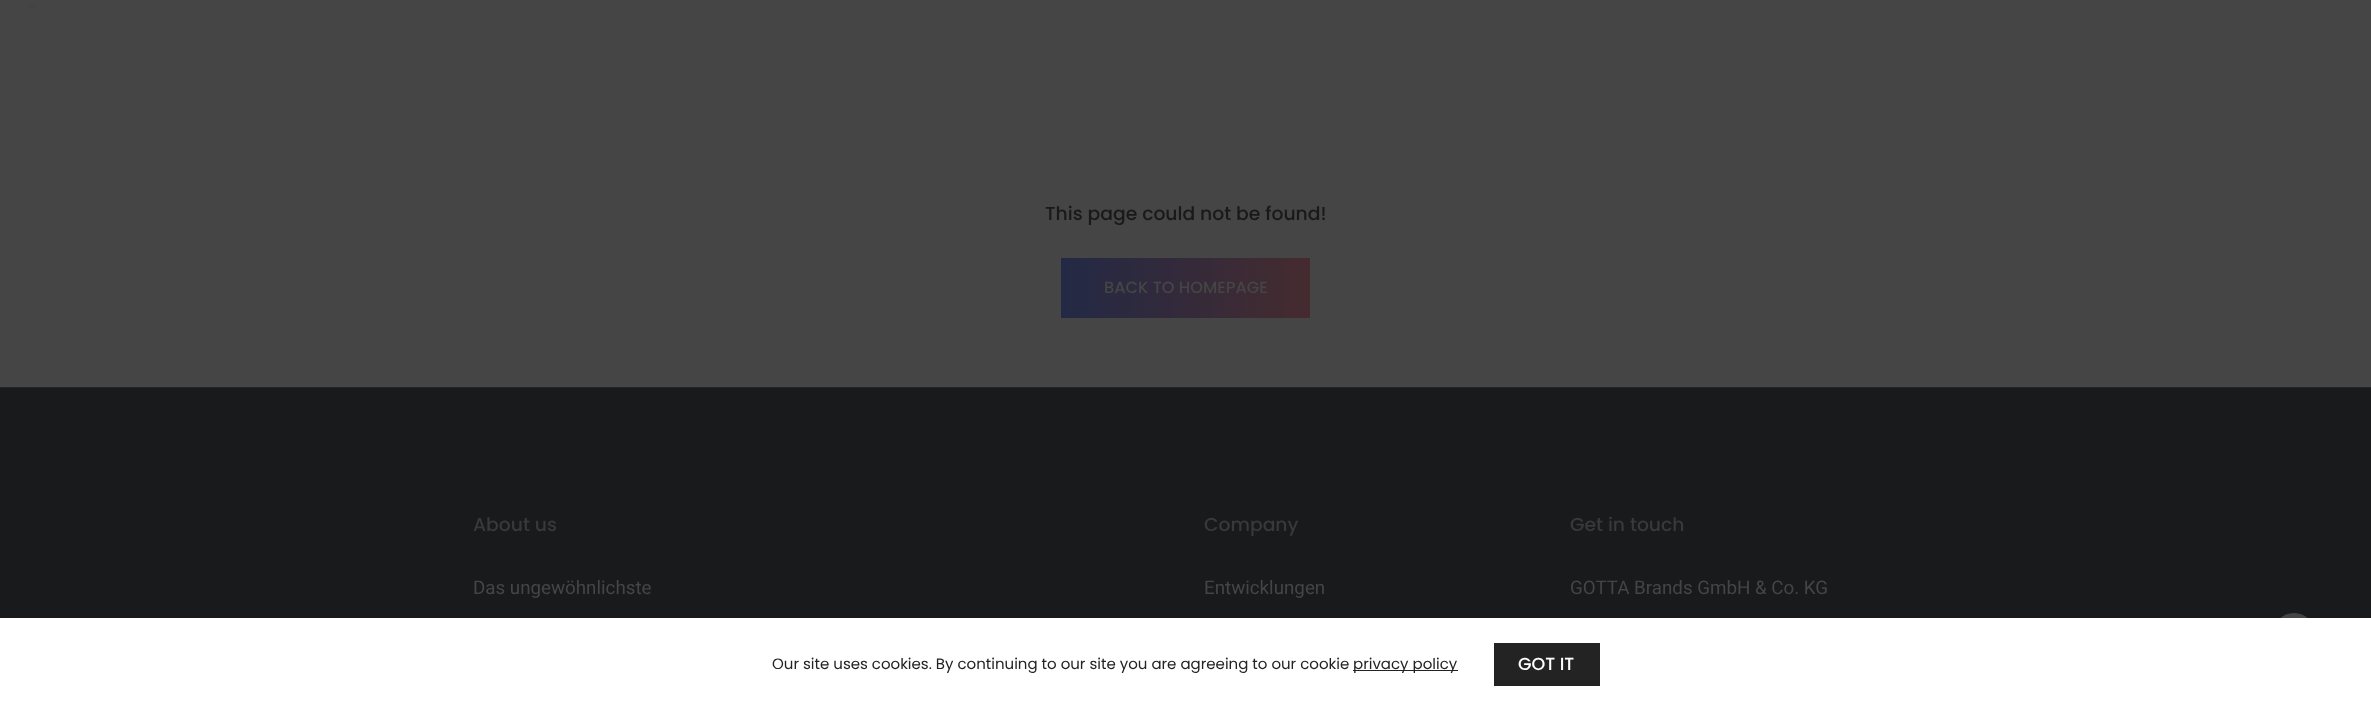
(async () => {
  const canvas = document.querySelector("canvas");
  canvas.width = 2371;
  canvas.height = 711;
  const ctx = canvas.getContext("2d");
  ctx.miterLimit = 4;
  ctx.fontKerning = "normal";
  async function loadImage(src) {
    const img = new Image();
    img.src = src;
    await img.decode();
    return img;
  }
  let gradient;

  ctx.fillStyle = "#191a1b";
  ctx.fillRect(0, 0, 2371, 711);
  ctx.drawImage(await loadImage("img/1.png"), 0, 0, 2371, 388);
  gradient = ctx.createLinearGradient(1061, 288, 1559, 288);
  gradient.addColorStop(0, "#232945");
  gradient.addColorStop(0.5, "#452b2f");
  gradient.addColorStop(1, "#232945");
  ctx.fillStyle = gradient;
  ctx.fillRect(1061, 258, 249, 60);
  ctx.fillStyle = "#454545";
  ctx.beginPath();
  ctx.arc(2294, 634, 21, 0, Math.PI * 2);
  ctx.fill();
  for (const [x, y, w, h, color] of [
    [0, 618, 2371, 93, "#ffffff"],
    [1353, 670, 105, 1, "#232323"],
    [1494, 643, 106, 43, "#232323"],
  ]) {
    ctx.fillStyle = color;
    ctx.fillRect(x, y, w, h);
  }
  ctx.font = "500 18.75px Poppins";
  ctx.fillStyle = "#191919";
  ctx.fillText("This page could not be found!", 1045, 220);
  ctx.font = "500 16.25px Poppins";
  ctx.fillStyle = "#454545";
  ctx.fillText("BACK TO HOMEPAGE", 1104, 293);
  ctx.font = "500 18.75px Poppins";
  ctx.fillStyle = "#393939";
  ctx.fillText("About us", 473, 531);
  ctx.font = "18.75px Roboto";
  ctx.fillStyle = "#454545";
  ctx.fillText("Das ungewöhnlichste", 473, 594);
  ctx.font = "500 18.75px Poppins";
  ctx.fillStyle = "#393939";
  ctx.fillText("Company", 1204, 531);
  ctx.font = "18.75px Roboto";
  ctx.fillStyle = "#454545";
  ctx.fillText("Entwicklungen", 1204, 594);
  ctx.font = "500 18.75px Poppins";
  ctx.fillStyle = "#393939";
  ctx.fillText("Get in touch", 1570, 531);
  ctx.font = "18.75px Roboto";
  ctx.fillStyle = "#454545";
  ctx.fillText("GOTTA Brands GmbH & Co. KG", 1570, 594);
  ctx.font = "15px Poppins";
  ctx.fillStyle = "#232323";
  ctx.fillText("Our site uses cookies. By continuing to our site you are agreeing to our cookie", 772, 669);
  ctx.fillText("privacy policy", 1353, 669);
  ctx.font = "500 17.5px Poppins";
  ctx.fillStyle = "#ffffff";
  ctx.fillText("GOT IT", 1518, 670);
})();
